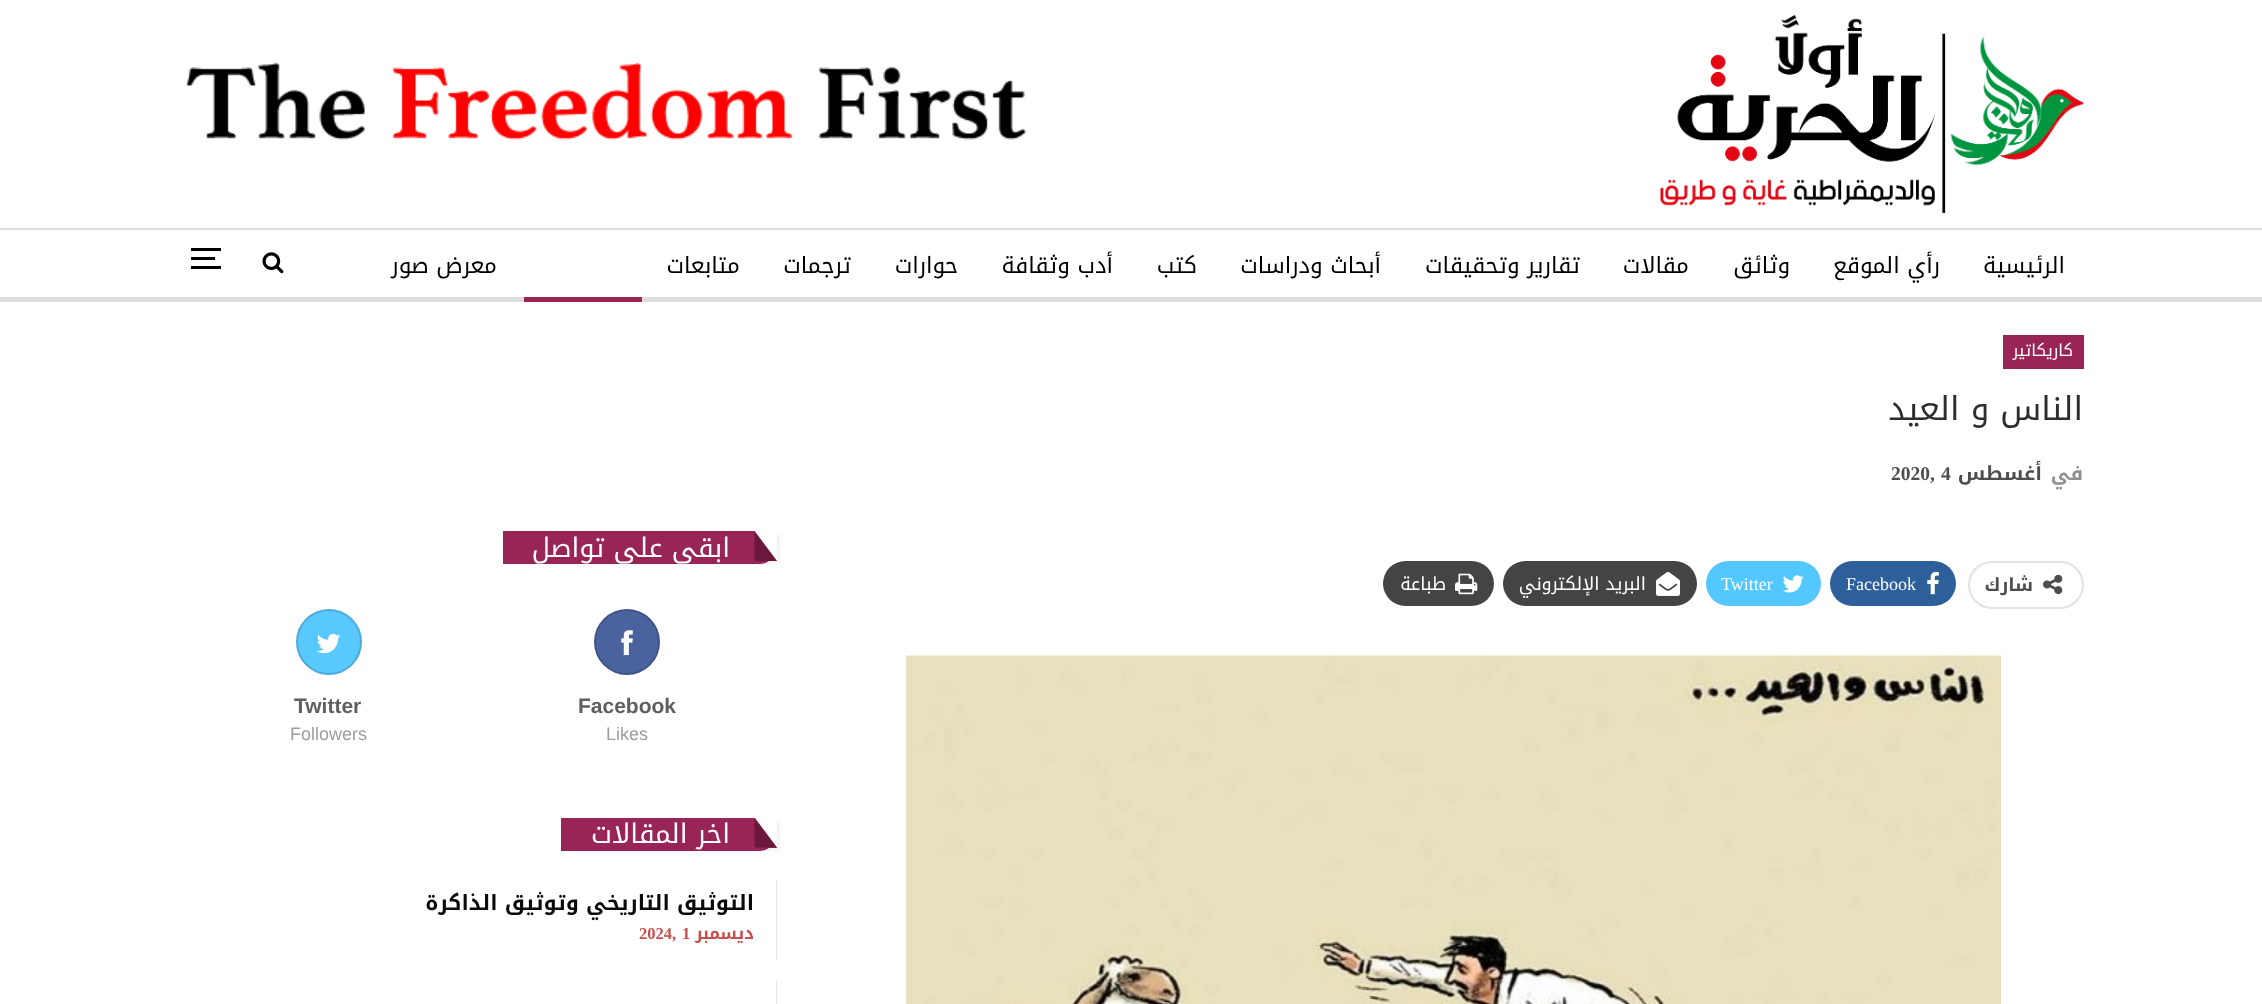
(async () => {
  const canvas = document.querySelector("canvas");
  canvas.width = 2262;
  canvas.height = 1004;
  const ctx = canvas.getContext("2d");
  ctx.miterLimit = 4;
  ctx.fontKerning = "normal";
  async function loadImage(src) {
    const img = new Image();
    img.src = src;
    await img.decode();
    return img;
  }
  let path;

  ctx.fillStyle = "#ffffff";
  ctx.fillRect(0, 0, 2262, 1004);
  ctx.drawImage(await loadImage("img/1.png"), 1660, 15, 424, 198);
  ctx.drawImage(await loadImage("img/2.png"), 186, 62, 841, 78);
  for (const [x, y, w, h, color] of [
    [0, 228, 2262, 2, "#dedede"],
    [0, 297, 2262, 5, "#dedede"],
    [524, 297, 118, 5, "#992556"],
  ]) {
    ctx.fillStyle = color;
    ctx.fillRect(x, y, w, h);
  }
  ctx.drawImage(await loadImage("img/3.png"), 262, 252, 22, 22);
  for (const [x, y, w, h, color] of [
    [191, 257, 24, 3, "#000000"],
    [191, 248, 30, 3, "#000000"],
    [191, 266, 30, 3, "#000000"],
    [2003, 335, 81, 34, "#992556"],
  ]) {
    ctx.fillStyle = color;
    ctx.fillRect(x, y, w, h);
  }
  ctx.beginPath();
  ctx.roundRect(1969, 562, 114, 46, 23);
  ctx.strokeStyle = "#e2e2e2";
  ctx.lineWidth = 2;
  ctx.stroke();
  ctx.drawImage(await loadImage("img/4.png"), 2043, 574, 20, 21);
  ctx.fillStyle = "#2d5f9a";
  ctx.beginPath();
  ctx.roundRect(1830, 561, 126, 45, 22.5);
  ctx.fill();
  ctx.drawImage(await loadImage("img/5.png"), 1927, 571, 12, 24);
  ctx.fillStyle = "#53c7ff";
  ctx.beginPath();
  ctx.roundRect(1706, 561, 115, 45, 22.5);
  ctx.fill();
  ctx.drawImage(await loadImage("img/6.png"), 1782, 575, 22, 18);
  ctx.fillStyle = "#444444";
  ctx.beginPath();
  ctx.roundRect(1503, 561, 194, 45, 22.5);
  ctx.fill();
  ctx.drawImage(await loadImage("img/7.png"), 1656, 572, 24, 24);
  ctx.beginPath();
  ctx.roundRect(1383, 561, 111, 45, 22.5);
  ctx.fill();
  ctx.drawImage(await loadImage("img/8.png"), 1455, 573, 23, 22);
  ctx.drawImage(await loadImage("img/9.png"), 906, 655, 1095, 349);
  ctx.fillStyle = "#992556";
  ctx.beginPath();
  ctx.roundRect(503, 531, 274, 33, [0, 0, 18, 0]);
  ctx.fill();
  ctx.fillRect(769, 546, 8, 15);
  ctx.fillStyle = "#ffffff";
  path = new Path2D("M754.5 531H777V561Z");
  ctx.fill(path);
  ctx.save();
  path = new Path2D("M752 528H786V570H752ZM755 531H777V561H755Z");
  ctx.clip(path, "evenodd");
  ctx.fillStyle = "rgba(0, 0, 0, 0.05)";
  ctx.filter = "blur(1.5px)";
  ctx.beginPath();
  ctx.rect(758, 534, 22, 30);
  ctx.fill();
  ctx.filter = "none";
  ctx.restore();
  ctx.fillStyle = "rgba(0, 0, 0, 0.3)";
  path = new Path2D("M777 561H754.5V531Z");
  ctx.fill(path);
  ctx.fillStyle = "#4a639f";
  ctx.beginPath();
  ctx.arc(627, 642, 33, 0, Math.PI * 2);
  ctx.fill();
  ctx.beginPath();
  ctx.arc(627, 642, 32, 0, Math.PI * 2);
  ctx.strokeStyle = "rgba(0, 0, 0, 0.15)";
  ctx.stroke();
  ctx.drawImage(await loadImage("img/10.png"), 621, 630, 12, 26);
  ctx.fillStyle = "#59c8ff";
  ctx.beginPath();
  ctx.arc(329, 642, 33, 0, Math.PI * 2);
  ctx.fill();
  ctx.beginPath();
  ctx.arc(329, 642, 32, 0, Math.PI * 2);
  ctx.stroke();
  ctx.drawImage(await loadImage("img/11.png"), 317, 633, 24, 21);
  ctx.fillStyle = "#992556";
  ctx.beginPath();
  ctx.roundRect(561, 818, 216, 33, [0, 0, 18, 0]);
  ctx.fill();
  ctx.fillRect(769, 833, 8, 15);
  ctx.fillStyle = "#ffffff";
  path = new Path2D("M754.5 817.5H777V847.5Z");
  ctx.fill(path);
  ctx.save();
  path = new Path2D("M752 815H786V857H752ZM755 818H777V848H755Z");
  ctx.clip(path, "evenodd");
  ctx.fillStyle = "rgba(0, 0, 0, 0.05)";
  ctx.filter = "blur(1.5px)";
  ctx.beginPath();
  ctx.rect(758, 821, 22, 30);
  ctx.fill();
  ctx.filter = "none";
  ctx.restore();
  ctx.fillStyle = "rgba(0, 0, 0, 0.3)";
  path = new Path2D("M777 847.5H754.5V817.5Z");
  ctx.fill(path);
  ctx.fillStyle = "#e3e3e3";
  ctx.fillRect(776, 881, 1, 78);
  ctx.fillRect(776, 981, 1, 23);
  ctx.direction = "rtl";
  ctx.font = "22.5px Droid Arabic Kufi";
  ctx.fillStyle = "#000000";
  for (const [text, x, y] of [
    ["الرئيسية", 2065, 273],
    ["رأي الموقع", 1940, 273],
    ["وثائق", 1790, 273],
    ["مقالات", 1689, 273],
    ["تقارير وتحقيقات", 1580, 273],
    ["أبحاث ودراسات", 1381, 273],
    ["كتب", 1197, 273],
    ["أدب وثقافة", 1113, 273],
    ["حوارات", 958, 273],
    ["ترجمات", 851, 273],
    ["متابعات", 740, 273],
    ["معرض صور", 497, 273],
  ]) {
    ctx.fillText(text, x, y);
  }
  ctx.font = "16.5px Droid Arabic Kufi";
  ctx.fillStyle = "#ffffff";
  ctx.fillText("كاريكاتير", 2073, 356);
  ctx.font = "33px Droid Arabic Kufi";
  ctx.fillStyle = "#2d2d2d";
  ctx.fillText("الناس و العيد", 2083, 420);
  ctx.font = "bold 19.5px Droid Arabic Kufi";
  ctx.fillStyle = "#8f8f8f";
  ctx.fillText("في", 2083, 480);
  ctx.fillStyle = "#4d4d4d";
  ctx.fillText("أغسطس", 2042, 480);
  ctx.direction = "ltr";
  ctx.font = "bold 19.5px Liberation Serif";
  ctx.fillText("4", 1941, 480);
  ctx.fillText("2020,", 1891, 480);
  ctx.direction = "rtl";
  ctx.font = "bold 18px Droid Arabic Kufi";
  ctx.fillText("شارك", 2033, 591);
  ctx.direction = "ltr";
  ctx.font = "18px Liberation Serif";
  ctx.fillStyle = "#ffffff";
  ctx.fillText("Facebook", 1846, 590);
  ctx.fillText("Twitter", 1721, 590);
  ctx.direction = "rtl";
  ctx.font = "18px Droid Arabic Kufi";
  ctx.fillText("البريد الإلكتروني", 1646, 590);
  ctx.fillText("طباعة", 1446, 590);
  ctx.font = "27px Droid Arabic Kufi";
  ctx.fillText("ابقى على تواصل", 730, 557);
  ctx.direction = "ltr";
  ctx.font = "bold 21px Liberation Sans";
  ctx.fillStyle = "#5f5f5f";
  ctx.fillText("Facebook", 578, 713);
  ctx.font = "18px Liberation Sans";
  ctx.fillStyle = "#9d9d9d";
  ctx.fillText("Likes", 606, 740);
  ctx.font = "bold 21px Liberation Sans";
  ctx.fillStyle = "#5f5f5f";
  ctx.fillText("Twitter", 294, 713);
  ctx.font = "18px Liberation Sans";
  ctx.fillStyle = "#9d9d9d";
  ctx.fillText("Followers", 290, 740);
  ctx.direction = "rtl";
  ctx.font = "27px Droid Arabic Kufi";
  ctx.fillStyle = "#ffffff";
  ctx.fillText("اخر المقالات", 730, 843);
  ctx.font = "bold 21px Droid Arabic Kufi";
  ctx.fillStyle = "#0a0a0a";
  ctx.fillText("التوثيق التاريخي وتوثيق الذاكرة", 754, 910);
  ctx.font = "bold 16.5px Droid Arabic Kufi";
  ctx.fillStyle = "#c74d4d";
  ctx.fillText("ديسمبر", 754, 939);
  ctx.direction = "ltr";
  ctx.font = "bold 16.5px Liberation Serif";
  ctx.fillText("1", 682, 939);
  ctx.fillText("2024,", 639, 939);
})();
